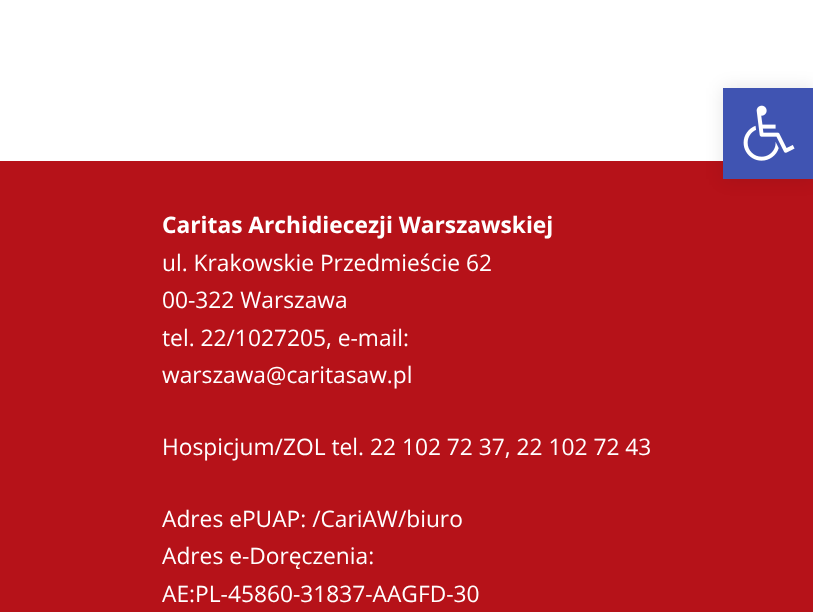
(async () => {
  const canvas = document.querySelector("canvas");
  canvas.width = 813;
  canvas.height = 612;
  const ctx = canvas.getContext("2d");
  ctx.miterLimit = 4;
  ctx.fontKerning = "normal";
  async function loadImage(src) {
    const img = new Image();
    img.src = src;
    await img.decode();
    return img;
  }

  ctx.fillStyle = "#ffffff";
  ctx.fillRect(0, 0, 813, 612);
  ctx.fillStyle = "#b61219";
  ctx.fillRect(0, 161, 813, 451);
  ctx.fillStyle = "rgba(0, 0, 0, 0.1)";
  ctx.filter = "blur(9px)";
  ctx.beginPath();
  ctx.rect(723, 88, 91, 91);
  ctx.fill();
  ctx.filter = "none";
  ctx.fillStyle = "#4054b2";
  ctx.fillRect(723, 88, 90, 91);
  ctx.drawImage(await loadImage("img/1.png"), 743, 105, 52, 56);
  ctx.font = "bold 22.75px Open Sans";
  ctx.fillStyle = "#ffffff";
  ctx.fillText("Caritas Archidiecezji Warszawskiej", 162, 233);
  ctx.font = "22.75px Open Sans";
  for (const [text, x, y] of [
    ["ul. Krakowskie Przedmieście 62", 162, 271],
    ["00-322 Warszawa", 162, 308],
    ["tel. 22/1027205, e-mail:", 162, 346],
    ["warszawa@caritasaw.pl", 162, 383],
    ["Hospicjum/ZOL tel. 22 102 72 37, 22 102 72 43", 162, 455],
    ["Adres ePUAP: /CariAW/biuro", 162, 527],
    ["Adres e-Doręczenia:", 162, 564],
    ["AE:PL-45860-31837-AAGFD-30", 162, 602],
  ]) {
    ctx.fillText(text, x, y);
  }
})();
